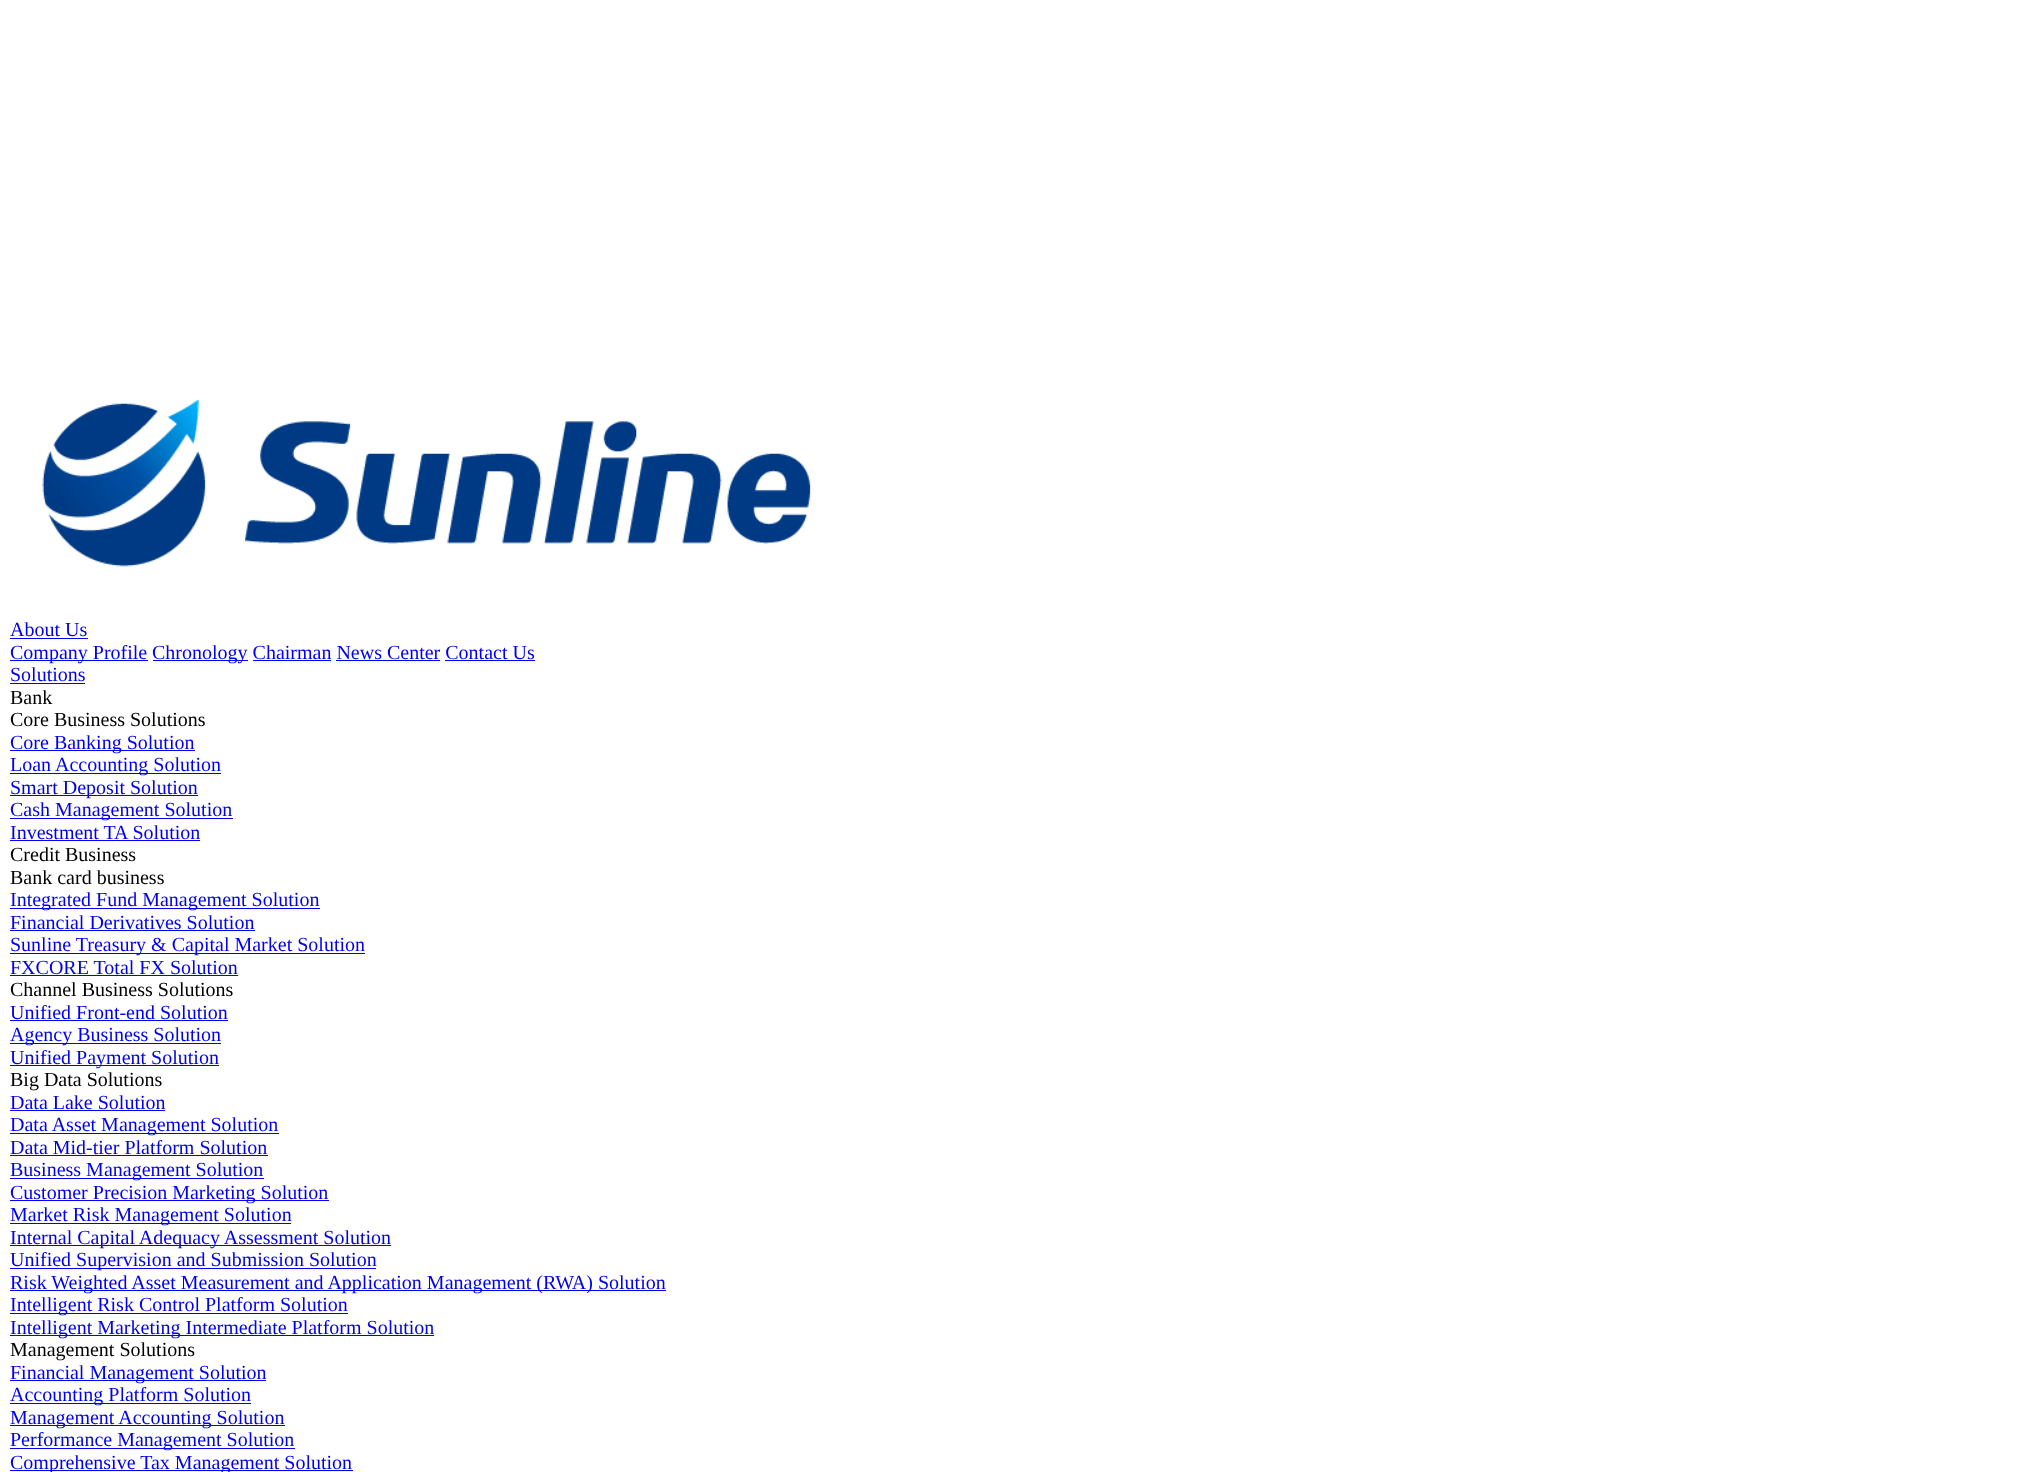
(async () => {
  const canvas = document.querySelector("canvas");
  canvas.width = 2028;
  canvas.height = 1472;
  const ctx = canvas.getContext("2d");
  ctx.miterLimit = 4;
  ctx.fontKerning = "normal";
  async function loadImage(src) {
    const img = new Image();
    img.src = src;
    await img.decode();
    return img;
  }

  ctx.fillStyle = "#ffffff";
  ctx.fillRect(0, 0, 2028, 1472);
  ctx.drawImage(await loadImage("img/1.png"), 42, 399, 769, 168);
  for (const [x, y, w, h, color] of [
    [10, 638, 78, 1, "#0000ee"],
    [10, 660, 138, 1, "#0000ee"],
    [153, 660, 95, 1, "#0000ee"],
    [253, 660, 78, 1, "#0000ee"],
    [336, 660, 104, 1, "#0000ee"],
    [445, 660, 90, 1, "#0000ee"],
    [10, 683, 75, 1, "#0000ee"],
    [10, 750, 185, 1, "#0000ee"],
    [10, 773, 211, 1, "#0000ee"],
    [10, 795, 188, 1, "#0000ee"],
    [10, 818, 223, 1, "#0000ee"],
    [10, 840, 190, 1, "#0000ee"],
    [10, 908, 310, 1, "#0000ee"],
    [10, 930, 245, 1, "#0000ee"],
    [10, 953, 355, 1, "#0000ee"],
    [10, 975, 228, 1, "#0000ee"],
    [10, 1020, 218, 1, "#0000ee"],
    [10, 1043, 211, 1, "#0000ee"],
    [10, 1065, 209, 1, "#0000ee"],
    [10, 1110, 155, 1, "#0000ee"],
    [10, 1133, 269, 1, "#0000ee"],
    [10, 1155, 258, 1, "#0000ee"],
    [10, 1178, 254, 1, "#0000ee"],
    [10, 1200, 319, 1, "#0000ee"],
    [10, 1223, 281, 1, "#0000ee"],
    [10, 1245, 381, 1, "#0000ee"],
    [10, 1268, 366, 1, "#0000ee"],
    [10, 1290, 656, 1, "#0000ee"],
    [10, 1313, 338, 1, "#0000ee"],
    [10, 1335, 424, 1, "#0000ee"],
    [10, 1380, 256, 1, "#0000ee"],
    [10, 1403, 241, 1, "#0000ee"],
    [10, 1425, 275, 1, "#0000ee"],
    [10, 1448, 285, 1, "#0000ee"],
    [10, 1470, 343, 1, "#0000ee"],
  ]) {
    ctx.fillStyle = color;
    ctx.fillRect(x, y, w, h);
  }
  ctx.font = "20px Liberation Serif";
  for (const [text, x, y] of [
    ["About Us", 10, 636],
    ["Company Profile", 10, 659],
    ["Chronology Chairman News Center Contact Us", 152, 659],
    ["Solutions", 10, 681],
  ]) {
    ctx.fillText(text, x, y);
  }
  ctx.fillStyle = "#000000";
  ctx.fillText("Bank", 10, 704);
  ctx.fillText("Core Business Solutions", 10, 726);
  ctx.fillStyle = "#0000ee";
  for (const [text, x, y] of [
    ["Core Banking Solution", 10, 749],
    ["Loan Accounting Solution", 10, 771],
    ["Smart Deposit Solution", 10, 794],
    ["Cash Management Solution", 10, 816],
    ["Investment TA Solution", 10, 839],
  ]) {
    ctx.fillText(text, x, y);
  }
  ctx.fillStyle = "#000000";
  ctx.fillText("Credit Business", 10, 861);
  ctx.fillText("Bank card business", 10, 884);
  ctx.fillStyle = "#0000ee";
  for (const [text, x, y] of [
    ["Integrated Fund Management Solution", 10, 906],
    ["Financial Derivatives Solution", 10, 929],
    ["Sunline Treasury & Capital Market Solution", 10, 951],
    ["FXCORE Total FX Solution", 10, 974],
  ]) {
    ctx.fillText(text, x, y);
  }
  ctx.fillStyle = "#000000";
  ctx.fillText("Channel Business Solutions", 10, 996);
  ctx.fillStyle = "#0000ee";
  for (const [text, x, y] of [
    ["Unified Front-end Solution", 10, 1019],
    ["Agency Business Solution", 10, 1041],
    ["Unified Payment Solution", 10, 1064],
  ]) {
    ctx.fillText(text, x, y);
  }
  ctx.fillStyle = "#000000";
  ctx.fillText("Big Data Solutions", 10, 1086);
  ctx.fillStyle = "#0000ee";
  for (const [text, x, y] of [
    ["Data Lake Solution", 10, 1109],
    ["Data Asset Management Solution", 10, 1131],
    ["Data Mid-tier Platform Solution", 10, 1154],
    ["Business Management Solution", 10, 1176],
    ["Customer Precision Marketing Solution", 10, 1199],
    ["Market Risk Management Solution", 10, 1221],
    ["Internal Capital Adequacy Assessment Solution", 10, 1244],
    ["Unified Supervision and Submission Solution", 10, 1266],
    ["Risk Weighted Asset Measurement and Application Management (RWA) Solution", 10, 1289],
    ["Intelligent Risk Control Platform Solution", 10, 1311],
    ["Intelligent Marketing Intermediate Platform Solution", 10, 1334],
  ]) {
    ctx.fillText(text, x, y);
  }
  ctx.fillStyle = "#000000";
  ctx.fillText("Management Solutions", 10, 1356);
  ctx.fillStyle = "#0000ee";
  for (const [text, x, y] of [
    ["Financial Management Solution", 10, 1379],
    ["Accounting Platform Solution", 10, 1401],
    ["Management Accounting Solution", 10, 1424],
    ["Performance Management Solution", 10, 1446],
    ["Comprehensive Tax Management Solution", 10, 1469],
  ]) {
    ctx.fillText(text, x, y);
  }
})();
